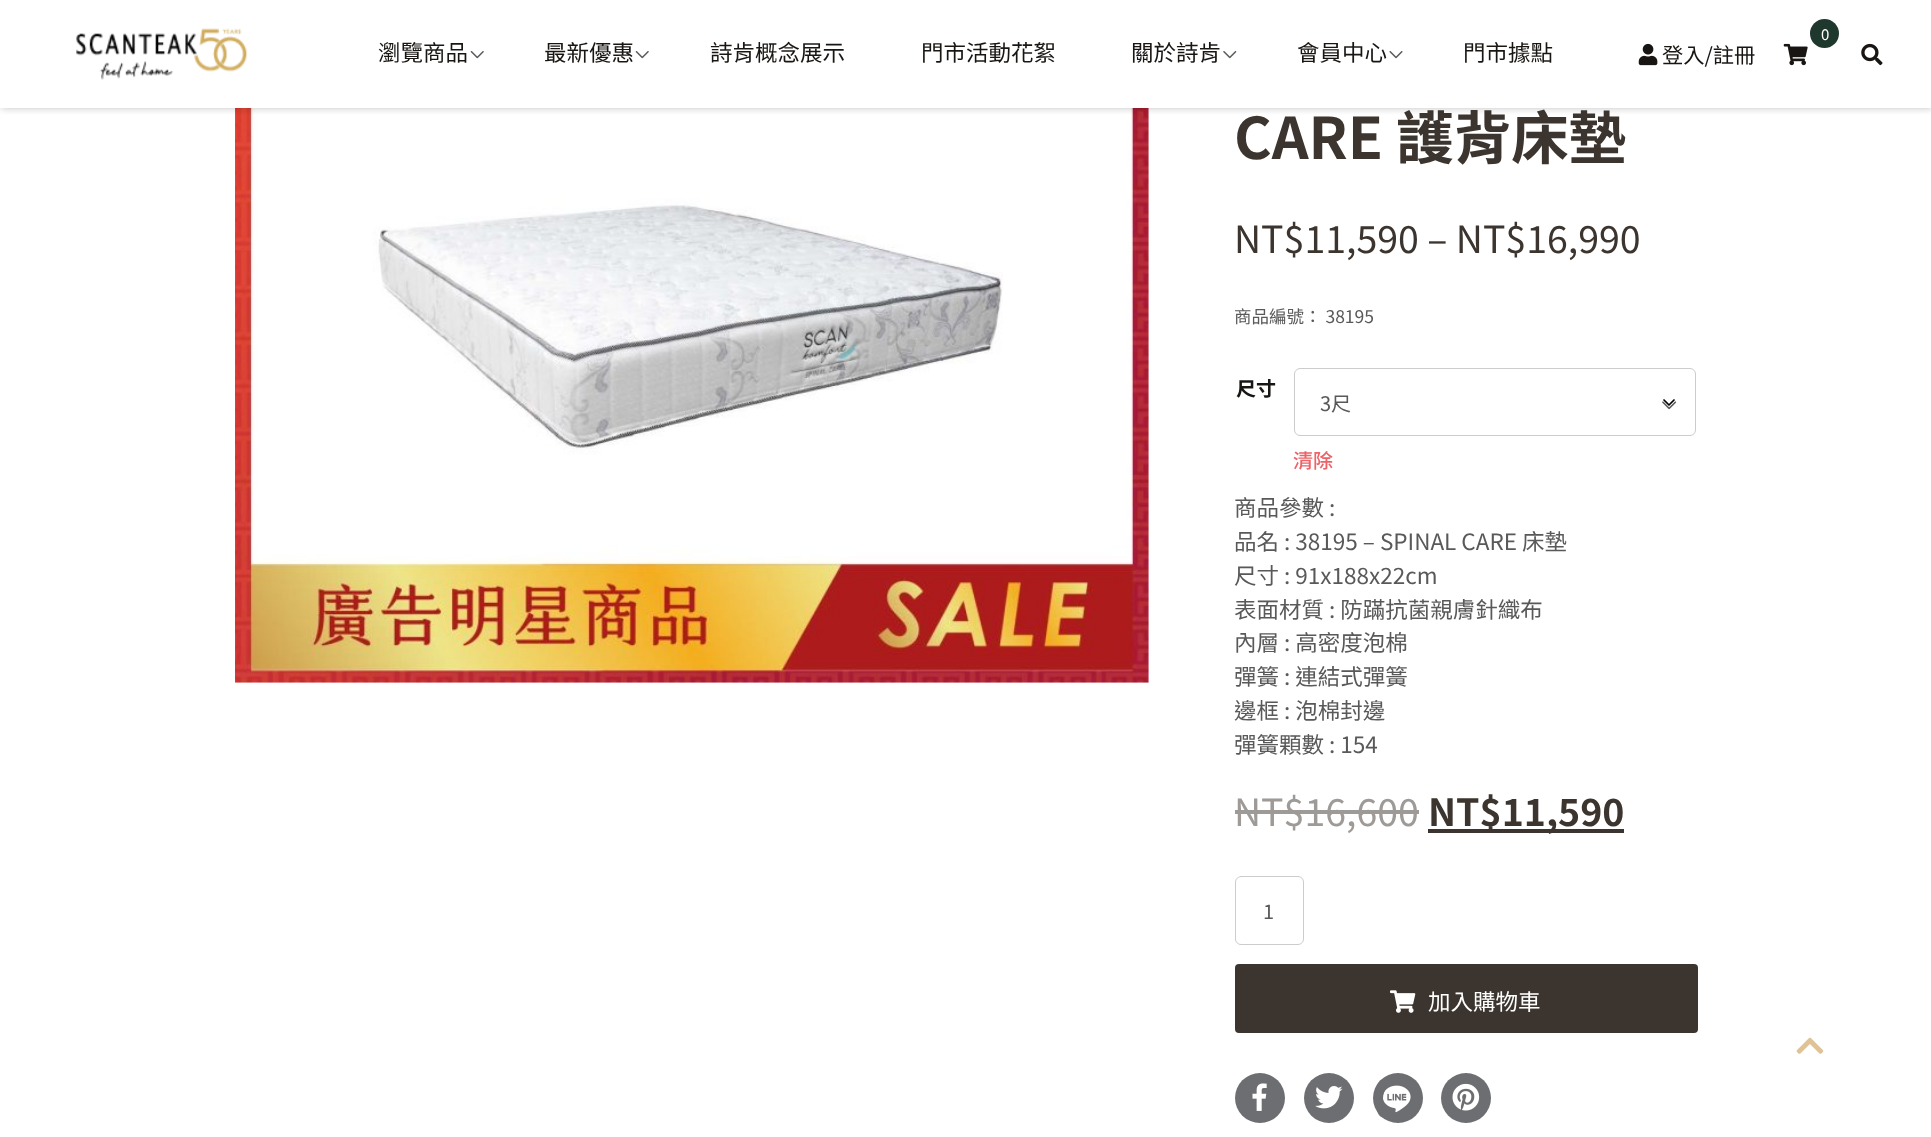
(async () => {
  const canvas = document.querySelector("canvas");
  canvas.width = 1931;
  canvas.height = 1137;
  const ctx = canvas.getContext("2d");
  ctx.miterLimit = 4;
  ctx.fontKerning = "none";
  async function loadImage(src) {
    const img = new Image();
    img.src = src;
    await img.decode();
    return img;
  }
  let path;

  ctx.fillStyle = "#ffffff";
  ctx.fillRect(0, 0, 1931, 1137);
  ctx.drawImage(await loadImage("img/8.png"), 235, 108, 914, 575);
  ctx.fillStyle = "rgba(24, 21, 18, 0.1)";
  ctx.filter = "blur(3px)";
  ctx.beginPath();
  ctx.rect(3, 1, 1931, 108);
  ctx.fill();
  ctx.filter = "none";
  ctx.fillStyle = "rgba(0, 0, 0, 0.1)";
  ctx.filter = "blur(3px)";
  ctx.beginPath();
  ctx.rect(0, 1, 1931, 108);
  ctx.fill();
  ctx.filter = "none";
  ctx.fillStyle = "#ffffff";
  ctx.fillRect(0, 0, 1931, 108);
  ctx.drawImage(await loadImage("img/1.png"), 76, 28, 172, 52);
  ctx.drawImage(await loadImage("img/2.png"), 470, 51, 14, 8);
  ctx.drawImage(await loadImage("img/2.png"), 635, 51, 14, 8);
  ctx.drawImage(await loadImage("img/3.png"), 1223, 51, 14, 8);
  ctx.drawImage(await loadImage("img/4.png"), 1389, 51, 14, 8);
  ctx.fillStyle = "#1f382e";
  ctx.beginPath();
  ctx.arc(1824.5, 33.5, 14.5, 0, Math.PI * 2);
  ctx.fill();
  ctx.drawImage(await loadImage("img/5.png"), 1783, 43, 25, 23);
  ctx.drawImage(await loadImage("img/6.png"), 1638, 43, 20, 23);
  ctx.drawImage(await loadImage("img/7.png"), 1861, 43, 22, 23);
  ctx.drawImage(await loadImage("img/9.png"), 1662, 401, 15, 9);
  path = new Path2D("M1664 400L1669 405L1674 400");
  ctx.strokeStyle = "#000000";
  ctx.lineWidth = 1.7;
  ctx.lineCap = "round";
  ctx.lineJoin = "round";
  ctx.stroke(path);
  ctx.beginPath();
  ctx.roundRect(1294.5, 368.5, 401, 67, 5.5);
  ctx.strokeStyle = "#cccccc";
  ctx.lineWidth = 1;
  ctx.lineJoin = "miter";
  ctx.stroke();
  ctx.fillStyle = "#9e9a97";
  ctx.fillRect(1235, 810, 184, 4);
  ctx.fillStyle = "#3c342e";
  ctx.fillRect(1428, 829, 196, 4);
  ctx.beginPath();
  ctx.roundRect(1235.5, 876.5, 68, 68, 5.5);
  ctx.stroke();
  ctx.beginPath();
  ctx.roundRect(1235, 964, 463, 69, 4);
  ctx.fill();
  ctx.drawImage(await loadImage("img/10.png"), 1390, 990, 26, 23);
  ctx.fillStyle = "#6d6e71";
  ctx.beginPath();
  ctx.arc(1260, 1098, 25, 0, Math.PI * 2);
  ctx.fill();
  ctx.drawImage(await loadImage("img/11.png"), 1252, 1083, 15, 28);
  ctx.beginPath();
  ctx.arc(1329, 1098, 25, 0, Math.PI * 2);
  ctx.fill();
  ctx.drawImage(await loadImage("img/12.png"), 1315, 1086, 28, 23);
  ctx.beginPath();
  ctx.arc(1398, 1098, 25, 0, Math.PI * 2);
  ctx.fill();
  ctx.fillStyle = "#ffffff";
  ctx.beginPath();
  ctx.arc(1398, 1098, 15, 0, Math.PI * 2);
  ctx.fill();
  ctx.drawImage(await loadImage("img/13.png"), 1377, 1080, 36, 38);
  ctx.fillStyle = "#6d6e71";
  ctx.beginPath();
  ctx.arc(1466, 1098, 25, 0, Math.PI * 2);
  ctx.fill();
  ctx.drawImage(await loadImage("img/14.png"), 1452, 1083, 28, 28);
  ctx.drawImage(await loadImage("img/15.png"), 1796, 1037, 28, 17);
  ctx.font = "22.5px Noto Sans TC";
  ctx.fillStyle = "#181512";
  for (const [text, x, y] of [
    ["瀏覽商品", 378, 61],
    ["最新優惠", 544, 61],
    ["詩肯概念展示", 710, 61],
    ["門市活動花絮", 921, 61],
    ["關於詩肯", 1131, 61],
    ["會員中心", 1297, 61],
    ["門市據點", 1463, 61],
  ]) {
    ctx.fillText(text, x, y);
  }
  ctx.font = "15px Noto Sans TC";
  ctx.fillStyle = "#ffffff";
  ctx.fillText("0", 1821, 40);
  ctx.font = "21.25px Noto Sans TC";
  ctx.fillStyle = "#181512";
  ctx.fillText("登入/註冊", 1662, 63);
  ctx.font = "bold 57.5px Noto Sans TC";
  ctx.fillStyle = "#3c342e";
  ctx.fillText("CARE 護背床墊", 1234, 159);
  ctx.font = "37.5px Noto Sans TC";
  ctx.fillText("NT$11,590 – NT$16,990", 1234, 253);
  ctx.font = "17.5px Noto Sans TC";
  ctx.fillStyle = "#595959";
  ctx.fillText("商品編號： 38195", 1234, 323);
  ctx.font = "bold 20px Noto Sans TC";
  ctx.fillStyle = "#181512";
  ctx.fillText("尺寸", 1236, 396);
  ctx.font = "20px Noto Sans TC";
  ctx.fillStyle = "#595959";
  ctx.fillText("3尺", 1320, 411);
  ctx.font = "500 20px Noto Sans TC";
  ctx.fillStyle = "#ed6368";
  ctx.fillText("清除", 1293, 468);
  ctx.font = "22.5px Noto Sans TC";
  ctx.fillStyle = "#595959";
  for (const [text, x, y] of [
    ["商品參數 :", 1234, 516],
    ["品名 : 38195 – SPINAL CARE 床墊", 1234, 550],
    ["尺寸 : 91x188x22cm", 1234, 584],
    ["表面材質 : 防蹣抗菌親膚針織布", 1234, 618],
    ["內層 : 高密度泡棉", 1234, 651],
    ["彈簧 : 連結式彈簧", 1234, 685],
    ["邊框 : 泡棉封邊", 1234, 719],
    ["彈簧顆數 : 154", 1234, 753],
  ]) {
    ctx.fillText(text, x, y);
  }
  ctx.font = "37.5px Noto Sans TC";
  ctx.fillStyle = "#9e9a97";
  ctx.fillText("NT$16,600", 1234, 826);
  ctx.font = "bold 37.5px Noto Sans TC";
  ctx.fillStyle = "#3c342e";
  ctx.fillText("NT$11,590", 1428, 826);
  ctx.font = "20px Noto Sans TC";
  ctx.fillStyle = "#595959";
  ctx.fillText("1", 1263, 919);
  ctx.font = "22.5px Noto Sans TC";
  ctx.fillStyle = "#ffffff";
  ctx.fillText("加入購物車", 1428, 1010);
})();
